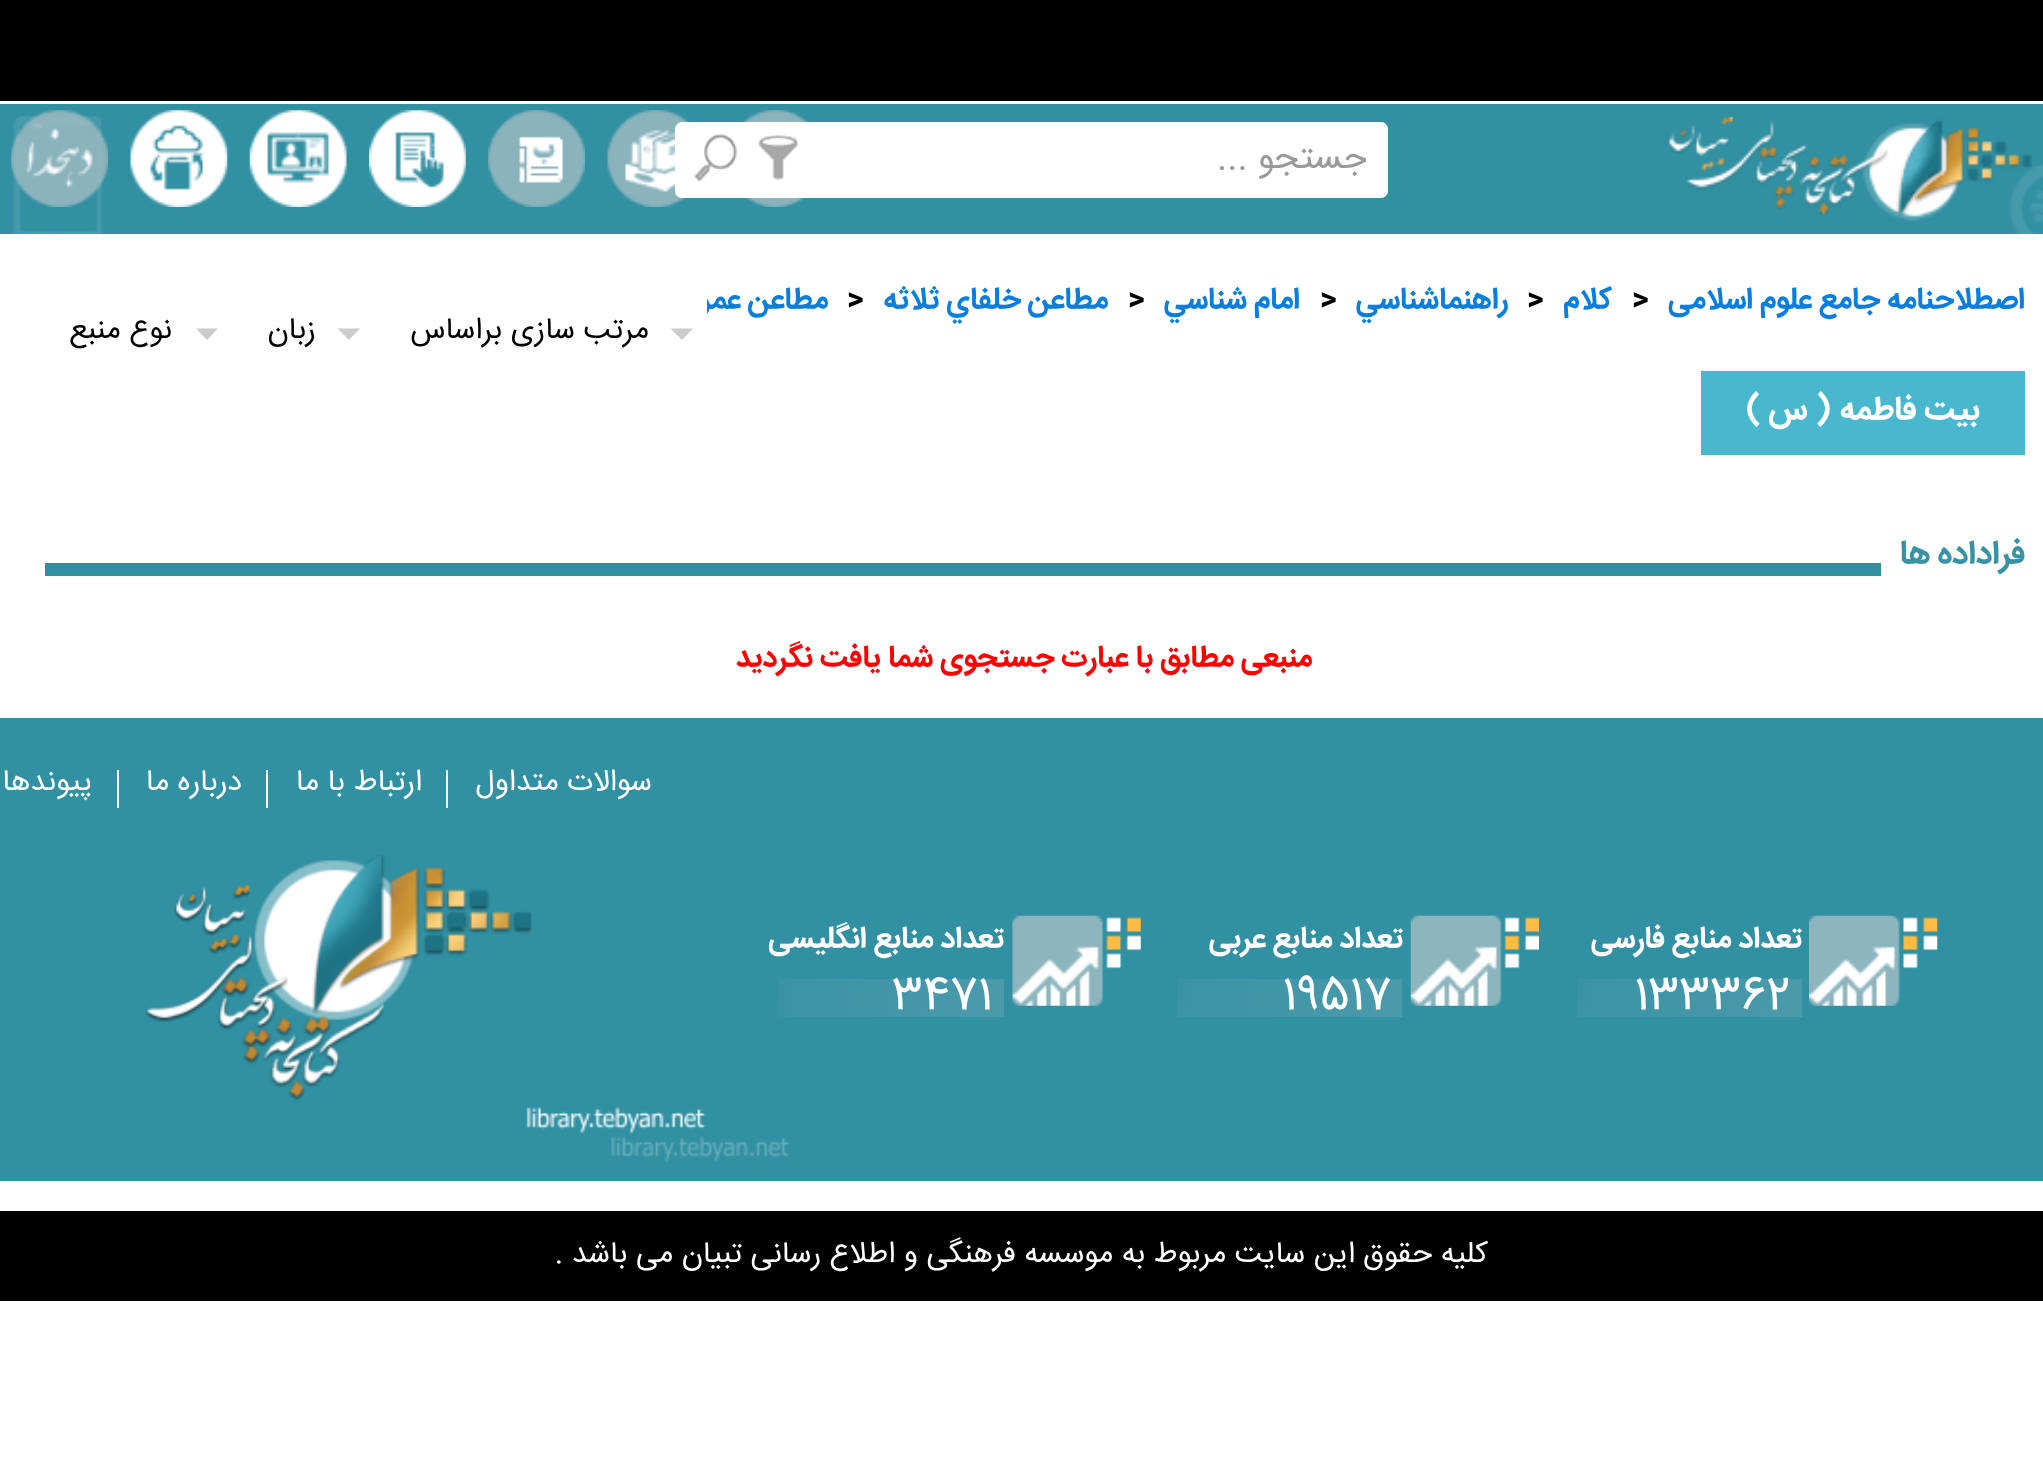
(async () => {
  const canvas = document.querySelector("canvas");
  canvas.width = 2043;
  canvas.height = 1483;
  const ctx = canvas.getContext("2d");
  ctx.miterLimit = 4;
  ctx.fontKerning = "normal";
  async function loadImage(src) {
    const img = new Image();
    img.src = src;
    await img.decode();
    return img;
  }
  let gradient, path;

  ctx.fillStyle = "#ffffff";
  ctx.fillRect(0, 0, 2043, 1483);
  ctx.fillStyle = "#000000";
  ctx.fillRect(0, 0, 2043, 101);
  ctx.fillStyle = "#3190a2";
  ctx.fillRect(0, 104, 2043, 130);
  ctx.drawImage(await loadImage("img/8.png"), 13, 115, 2030, 119);
  ctx.drawImage(await loadImage("img/1.png"), 742, 110, 68, 97);
  ctx.drawImage(await loadImage("img/2.png"), 607, 110, 84, 97);
  ctx.drawImage(await loadImage("img/3.png"), 488, 110, 97, 97);
  ctx.drawImage(await loadImage("img/4.png"), 369, 110, 97, 97);
  ctx.drawImage(await loadImage("img/5.png"), 249, 110, 98, 97);
  ctx.drawImage(await loadImage("img/6.png"), 130, 110, 98, 97);
  ctx.drawImage(await loadImage("img/7.png"), 11, 110, 97, 97);
  ctx.drawImage(await loadImage("img/9.png"), 1669, 117, 363, 104);
  ctx.fillStyle = "#ffffff";
  ctx.beginPath();
  ctx.roundRect(675, 122, 713, 76, 7);
  ctx.fill();
  ctx.drawImage(await loadImage("img/10.png"), 758, 135, 41, 45);
  ctx.drawImage(await loadImage("img/11.png"), 694, 134, 43, 47);
  ctx.fillStyle = "#cccccc";
  path = new Path2D("M337.5 328.5H360L349 340Z");
  ctx.fill(path);
  path = new Path2D("M196 328.5H218L207 340Z");
  ctx.fill(path);
  for (const [x, y, w, h, color] of [
    [45, 563, 1836, 13, "#308fa1"],
    [1701, 371, 324, 84, "#49b7ce"],
    [0, 718, 2043, 463, "#3190a2"],
    [446, 770, 2, 38, "#ffffff"],
    [266, 770, 2, 38, "#ffffff"],
    [117, 770, 2, 38, "#ffffff"],
  ]) {
    ctx.fillStyle = color;
    ctx.fillRect(x, y, w, h);
  }
  ctx.drawImage(await loadImage("img/12.png"), 145, 854, 645, 308);
  ctx.drawImage(await loadImage("img/13.png"), 1809, 915, 129, 91);
  gradient = ctx.createLinearGradient(1577, 979, 2027, 1006);
  gradient.addColorStop(0, "#3a93a5");
  gradient.addColorStop(1, "#5ba1af");
  ctx.fillStyle = gradient;
  ctx.fillRect(1577, 979, 225, 38);
  ctx.drawImage(await loadImage("img/14.png"), 1410, 915, 129, 91);
  gradient = ctx.createLinearGradient(1177, 979, 1627, 1006);
  gradient.addColorStop(0, "#3a93a5");
  gradient.addColorStop(1, "#5ba1af");
  ctx.fillStyle = gradient;
  ctx.fillRect(1177, 979, 225, 38);
  ctx.drawImage(await loadImage("img/15.png"), 1012, 915, 129, 91);
  gradient = ctx.createLinearGradient(779, 979, 1229, 1006);
  gradient.addColorStop(0, "#3a93a5");
  gradient.addColorStop(1, "#5ba1af");
  ctx.fillStyle = gradient;
  ctx.fillRect(779, 979, 225, 38);
  ctx.fillStyle = "#000000";
  ctx.fillRect(0, 1211, 2043, 90);
  ctx.save();
  ctx.beginPath();
  ctx.rect(866, 133, 500, 54);
  ctx.clip();
  ctx.direction = "rtl";
  ctx.font = "36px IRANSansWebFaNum";
  ctx.fillStyle = "#9a9a9a";
  ctx.fillText("جستجو ...", 1367, 168);
  ctx.restore();
  ctx.direction = "rtl";
  ctx.font = "bold 30px IRANSansWebFaNum";
  ctx.fillStyle = "#097ede";
  ctx.fillText("اصطلاحنامه جامع علوم اسلامی", 2025, 308);
  ctx.direction = "ltr";
  ctx.fillStyle = "#000000";
  ctx.fillText(">", 1632, 308);
  ctx.direction = "rtl";
  ctx.fillStyle = "#097ede";
  ctx.fillText("کلام", 1612, 308);
  ctx.direction = "ltr";
  ctx.fillStyle = "#000000";
  ctx.fillText(">", 1527, 308);
  ctx.direction = "rtl";
  ctx.fillStyle = "#097ede";
  ctx.fillText("راهنماشناسي", 1508, 308);
  ctx.direction = "ltr";
  ctx.fillStyle = "#000000";
  ctx.fillText(">", 1320, 308);
  ctx.direction = "rtl";
  ctx.fillStyle = "#097ede";
  ctx.fillText("امام شناسي", 1300, 308);
  ctx.direction = "ltr";
  ctx.fillStyle = "#000000";
  ctx.fillText(">", 1128, 308);
  ctx.direction = "rtl";
  ctx.fillStyle = "#097ede";
  ctx.fillText("مطاعن خلفاي ثلاثه", 1108, 308);
  ctx.direction = "ltr";
  ctx.fillStyle = "#000000";
  ctx.fillText(">", 847, 308);
  ctx.direction = "rtl";
  ctx.fillStyle = "#097ede";
  ctx.fillText("مطاعن عمر", 828, 308);
  ctx.fillStyle = "#ffffff";
  ctx.beginPath();
  ctx.roundRect(385, 293, 322, 76, [7, 7, 0, 0]);
  ctx.fill();
  ctx.fillStyle = "#cccccc";
  path = new Path2D("M670.5 328.5H693L682 340Z");
  ctx.fill(path);
  ctx.font = "30px IRANSansWebFaNum";
  ctx.fillStyle = "#000000";
  for (const [text, x, y] of [
    ["مرتب سازی براساس", 649, 338],
    ["زبان", 316, 338],
    ["نوع منبع", 172, 338],
  ]) {
    ctx.fillText(text, x, y);
  }
  ctx.font = "bold 33px IRANSansWebFaNum";
  ctx.fillStyle = "#3793a3";
  ctx.fillText("فراداده ها", 2025, 563);
  ctx.font = "bold 30px IRANSansWebFaNum";
  ctx.fillStyle = "#ff0000";
  ctx.fillText("منبعی مطابق با عبارت جستجوی شما یافت نگردید", 1312, 666);
  ctx.font = "bold 33px IRANSansWebFaNum";
  ctx.fillStyle = "#ffffff";
  ctx.fillText("بيت فاطمه ( س )", 1980, 419);
  ctx.font = "30px IRANSansWebFaNum";
  for (const [text, x, y] of [
    ["سوالات متداول", 652, 790],
    ["ارتباط", 422, 790],
    ["با ما", 345, 790],
    ["درباره ما", 242, 790],
    ["پیوندها", 92, 790],
  ]) {
    ctx.fillText(text, x, y);
  }
  ctx.font = "bold 30px IRANSansWebFaNum";
  ctx.fillText("تعداد منابع فارسی", 1802, 947);
  ctx.direction = "ltr";
  ctx.font = "45px IRANSansWebFaNum";
  ctx.fillText("133362", 1634, 1008);
  ctx.direction = "rtl";
  ctx.font = "bold 30px IRANSansWebFaNum";
  ctx.fillText("تعداد منابع عربی", 1403, 947);
  ctx.direction = "ltr";
  ctx.font = "45px IRANSansWebFaNum";
  ctx.fillText("19517", 1282, 1008);
  ctx.direction = "rtl";
  ctx.font = "bold 30px IRANSansWebFaNum";
  ctx.fillText("تعداد منابع انگلیسی", 1004, 947);
  ctx.direction = "ltr";
  ctx.font = "45px IRANSansWebFaNum";
  ctx.fillText("3471", 892, 1008);
  ctx.direction = "rtl";
  ctx.font = "30px IRANSansWebFaNum";
  ctx.fillText("کلیه حقوق این سایت مربوط به موسسه فرهنگی و اطلاع رسانی تبیان می باشد .", 1488, 1262);
})();
